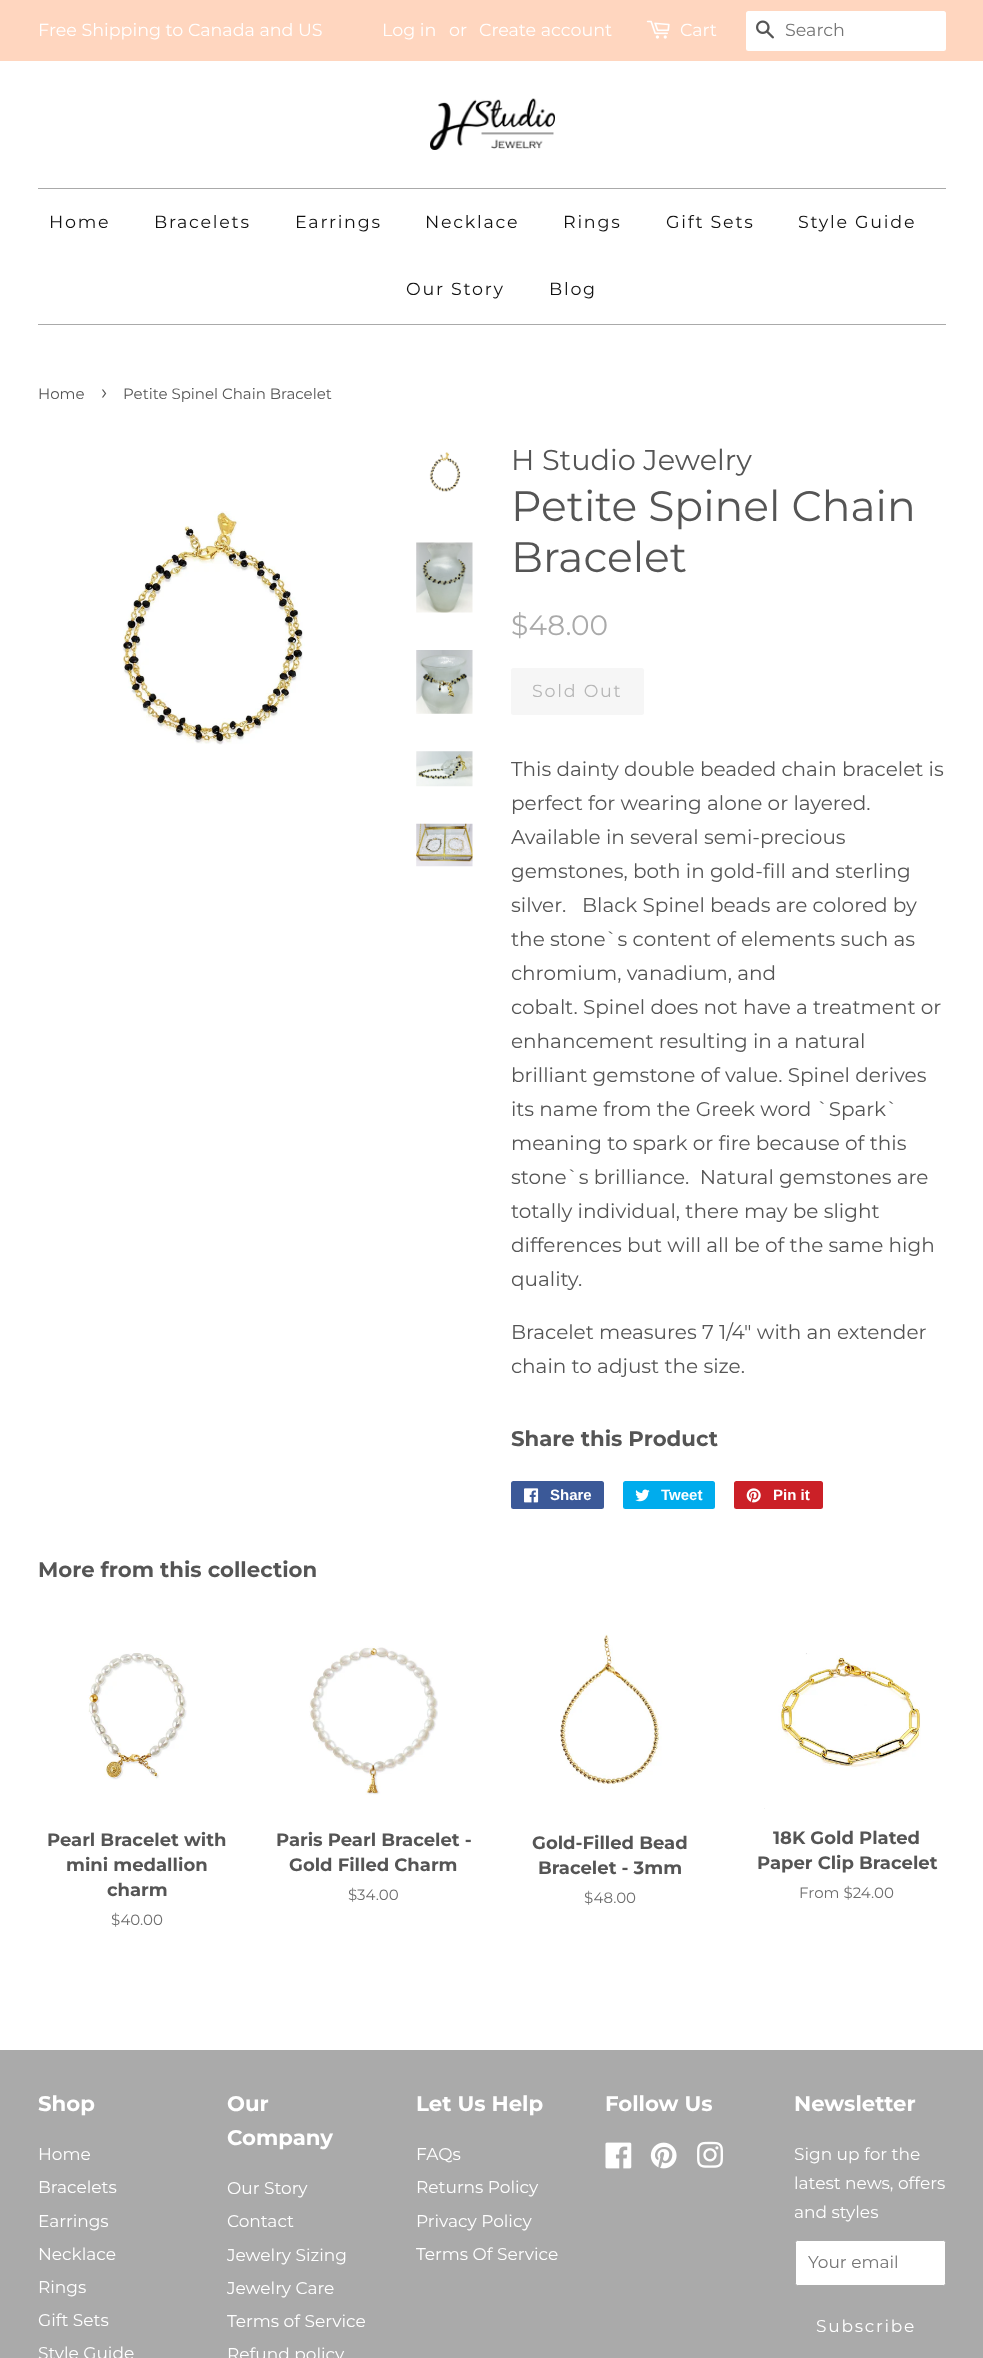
(async () => {
  const canvas = document.querySelector("canvas");
  canvas.width = 983;
  canvas.height = 2358;
  const ctx = canvas.getContext("2d");
  ctx.miterLimit = 4;
  ctx.fontKerning = "normal";
  async function loadImage(src) {
    const img = new Image();
    img.src = src;
    await img.decode();
    return img;
  }

  ctx.fillStyle = "#ffffff";
  ctx.fillRect(0, 0, 983, 2358);
  ctx.fillStyle = "#ffd6bf";
  ctx.fillRect(0, 0, 983, 61);
  ctx.drawImage(await loadImage("img/1.png"), 646, 20, 24, 19);
  ctx.fillStyle = "#ffffff";
  ctx.beginPath();
  ctx.roundRect(746, 11, 200, 40, 2.5);
  ctx.fill();
  ctx.drawImage(await loadImage("img/2.png"), 756, 20, 18, 19);
  ctx.drawImage(await loadImage("img/3.png"), 430, 98, 125, 52);
  ctx.fillStyle = "#aaaaaa";
  ctx.fillRect(38, 188, 908, 1);
  ctx.fillRect(38, 324, 908, 1);
  ctx.drawImage(await loadImage("img/4.png"), 122, 511, 183, 234);
  ctx.drawImage(await loadImage("img/5.png"), 429, 452, 32, 40);
  ctx.drawImage(await loadImage("img/6.png"), 416, 542, 57, 71);
  ctx.drawImage(await loadImage("img/7.png"), 416, 650, 57, 64);
  ctx.drawImage(await loadImage("img/8.png"), 416, 751, 57, 36);
  ctx.drawImage(await loadImage("img/9.png"), 416, 823, 57, 44);
  ctx.fillStyle = "#f6f6f6";
  ctx.beginPath();
  ctx.roundRect(511, 668, 133, 47, 2.5);
  ctx.fill();
  ctx.fillStyle = "#3b5998";
  ctx.beginPath();
  ctx.roundRect(511, 1481, 93, 28, 2.5);
  ctx.fill();
  ctx.drawImage(await loadImage("img/10.png"), 524, 1488, 15, 15);
  ctx.fillStyle = "#00aced";
  ctx.beginPath();
  ctx.roundRect(623, 1481, 92, 28, 2.5);
  ctx.fill();
  ctx.drawImage(await loadImage("img/11.png"), 635, 1489, 15, 13);
  ctx.fillStyle = "#cb2027";
  ctx.beginPath();
  ctx.roundRect(734, 1481, 89, 28, 2.5);
  ctx.fill();
  ctx.drawImage(await loadImage("img/12.png"), 746, 1488, 15, 15);
  ctx.drawImage(await loadImage("img/13.png"), 88, 1653, 99, 127);
  ctx.drawImage(await loadImage("img/14.png"), 309, 1646, 129, 149);
  ctx.drawImage(await loadImage("img/15.png"), 560, 1634, 102, 151);
  ctx.drawImage(await loadImage("img/16.png"), 764, 1653, 157, 156);
  ctx.fillStyle = "#aaaaaa";
  ctx.fillRect(0, 2050, 983, 308);
  ctx.drawImage(await loadImage("img/17.png"), 605, 2142, 27, 27);
  ctx.drawImage(await loadImage("img/18.png"), 650, 2142, 27, 27);
  ctx.drawImage(await loadImage("img/19.png"), 697, 2141, 26, 27);
  ctx.fillStyle = "#ffffff";
  ctx.beginPath();
  ctx.roundRect(795.5, 2240.5, 150, 45, 2);
  ctx.fill();
  ctx.strokeStyle = "#aaaaaa";
  ctx.stroke();
  ctx.font = "17.5px Montserrat";
  for (const [text, x, y] of [
    ["Free Shipping to Canada and US", 38, 36],
    ["Log in", 382, 36],
    ["or", 449, 36],
    ["Create account", 479, 36],
    ["Cart", 680, 36],
  ]) {
    ctx.fillText(text, x, y);
  }
  ctx.fillStyle = "#757575";
  ctx.fillText("Search", 785, 36);
  ctx.letterSpacing = "1.75px";
  ctx.fillStyle = "#111111";
  for (const [text, x, y] of [
    ["Home", 49, 228],
    ["Bracelets", 154, 228],
    ["Earrings", 295, 228],
    ["Necklace", 425, 228],
    ["Rings", 563, 228],
    ["Gift Sets", 666, 228],
    ["Style Guide", 798, 228],
    ["Our Story", 406, 295],
    ["Blog", 549, 295],
  ]) {
    ctx.fillText(text, x, y);
  }
  ctx.letterSpacing = "0px";
  ctx.font = "15px Montserrat";
  ctx.fillStyle = "#555555";
  ctx.fillText("Home", 38, 399);
  ctx.font = "21px Montserrat";
  ctx.fillText("›", 101, 399);
  ctx.font = "15px Montserrat";
  ctx.fillText("Petite Spinel Chain Bracelet", 123, 399);
  ctx.font = "28.75px Montserrat";
  ctx.fillText("H Studio Jewelry", 511, 470);
  ctx.font = "42.5px Montserrat";
  ctx.fillText("Petite Spinel Chain", 511, 521);
  ctx.fillText("Bracelet", 511, 572);
  ctx.font = "28px Montserrat";
  ctx.fillStyle = "#aaaaaa";
  ctx.fillText("$48.00", 511, 635);
  ctx.letterSpacing = "1.75px";
  ctx.font = "17.5px Montserrat";
  ctx.fillStyle = "#b6b6b6";
  ctx.fillText("Sold Out", 532, 697);
  ctx.letterSpacing = "0px";
  ctx.font = "20px Montserrat";
  ctx.fillStyle = "#555555";
  for (const [text, x, y] of [
    ["This dainty double beaded chain bracelet is", 511, 776],
    ["perfect for wearing alone or layered.", 511, 810],
    ["Available in several semi-precious", 511, 844],
    ["gemstones, both in gold-fill and sterling", 511, 878],
    ["silver.", 511, 912],
    ["Black Spinel beads are colored by", 582, 912],
    ["the stone`s content of elements such as", 511, 946],
    ["chromium, vanadium, and", 511, 980],
    ["cobalt. Spinel does not have a treatment or", 511, 1014],
    ["enhancement resulting in a natural", 511, 1048],
    ["brilliant gemstone of value. Spinel derives", 511, 1082],
    ["its name from the Greek word `Spark`", 511, 1116],
    ["meaning to spark or fire because of this", 511, 1150],
    ["stone`s brilliance.  Natural gemstones are", 511, 1184],
    ["totally individual, there may be slight", 511, 1218],
    ["differences but will all be of the same high", 511, 1252],
    ["quality.", 511, 1286],
    ["Bracelet measures 7 1/4\" with an extender", 511, 1339],
    ["chain to adjust the size.", 511, 1373],
  ]) {
    ctx.fillText(text, x, y);
  }
  ctx.font = "bold 21.25px Montserrat";
  ctx.fillText("Share this Product", 511, 1446);
  ctx.font = "bold 15px Liberation Sans";
  ctx.fillStyle = "#ffffff";
  for (const [text, x, y] of [
    ["Share", 550, 1500],
    ["Tweet", 661, 1500],
    ["Pin it", 773, 1500],
  ]) {
    ctx.fillText(text, x, y);
  }
  ctx.font = "bold 21.25px Montserrat";
  ctx.fillStyle = "#555555";
  ctx.fillText("More from this collection", 38, 1577);
  ctx.font = "bold 18px Montserrat";
  for (const [text, x, y] of [
    ["Pearl Bracelet with", 47, 1846],
    ["mini medallion", 66, 1871],
    ["charm", 107, 1896],
  ]) {
    ctx.fillText(text, x, y);
  }
  ctx.font = "15px Montserrat";
  ctx.fillStyle = "#6e6e6e";
  ctx.fillText("$40.00", 111, 1925);
  ctx.font = "bold 18px Montserrat";
  ctx.fillStyle = "#555555";
  ctx.fillText("Paris Pearl Bracelet -", 276, 1846);
  ctx.fillText("Gold Filled Charm", 289, 1871);
  ctx.font = "15px Montserrat";
  ctx.fillStyle = "#6e6e6e";
  ctx.fillText("$34.00", 348, 1900);
  ctx.font = "bold 18px Montserrat";
  ctx.fillStyle = "#555555";
  ctx.fillText("Gold-Filled Bead", 532, 1849);
  ctx.fillText("Bracelet - 3mm", 538, 1874);
  ctx.font = "15px Montserrat";
  ctx.fillStyle = "#6e6e6e";
  ctx.fillText("$48.00", 584, 1903);
  ctx.font = "bold 18px Montserrat";
  ctx.fillStyle = "#555555";
  ctx.fillText("18K Gold Plated", 773, 1844);
  ctx.fillText("Paper Clip Bracelet", 757, 1869);
  ctx.font = "15px Montserrat";
  ctx.fillStyle = "#6e6e6e";
  ctx.fillText("From $24.00", 799, 1898);
  ctx.font = "bold 21.25px Montserrat";
  ctx.fillStyle = "#ffffff";
  ctx.fillText("Shop", 38, 2111);
  ctx.font = "17px Montserrat";
  for (const [text, x, y] of [
    ["Home", 38, 2160],
    ["Bracelets", 38, 2193],
    ["Earrings", 38, 2227],
    ["Necklace", 38, 2260],
    ["Rings", 38, 2293],
    ["Gift Sets", 38, 2326],
    ["Style Guide", 38, 2359],
  ]) {
    ctx.fillText(text, x, y);
  }
  ctx.font = "bold 21.25px Montserrat";
  ctx.fillText("Our", 227, 2111);
  ctx.fillText("Company", 227, 2145);
  ctx.font = "17px Montserrat";
  for (const [text, x, y] of [
    ["Our Story", 227, 2194],
    ["Contact", 227, 2227],
    ["Jewelry Sizing", 227, 2261],
    ["Jewelry Care", 227, 2294],
    ["Terms of Service", 227, 2327],
    ["Refund policy", 227, 2360],
  ]) {
    ctx.fillText(text, x, y);
  }
  ctx.font = "bold 21.25px Montserrat";
  ctx.fillText("Let Us Help", 416, 2111);
  ctx.font = "17px Montserrat";
  for (const [text, x, y] of [
    ["FAQs", 416, 2160],
    ["Returns Policy", 416, 2193],
    ["Privacy Policy", 416, 2227],
    ["Terms Of Service", 416, 2260],
  ]) {
    ctx.fillText(text, x, y);
  }
  ctx.font = "bold 21.25px Montserrat";
  ctx.fillText("Follow Us", 605, 2111);
  ctx.fillText("Newsletter", 794, 2111);
  ctx.font = "17px Montserrat";
  for (const [text, x, y] of [
    ["Sign up for the", 794, 2160],
    ["latest news, offers", 794, 2189],
    ["and styles", 794, 2218],
  ]) {
    ctx.fillText(text, x, y);
  }
  ctx.fillStyle = "#757575";
  ctx.fillText("Your email", 808, 2268);
  ctx.letterSpacing = "1.75px";
  ctx.fillStyle = "#ffffff";
  ctx.fillText("Subscribe", 816, 2332);
})();
